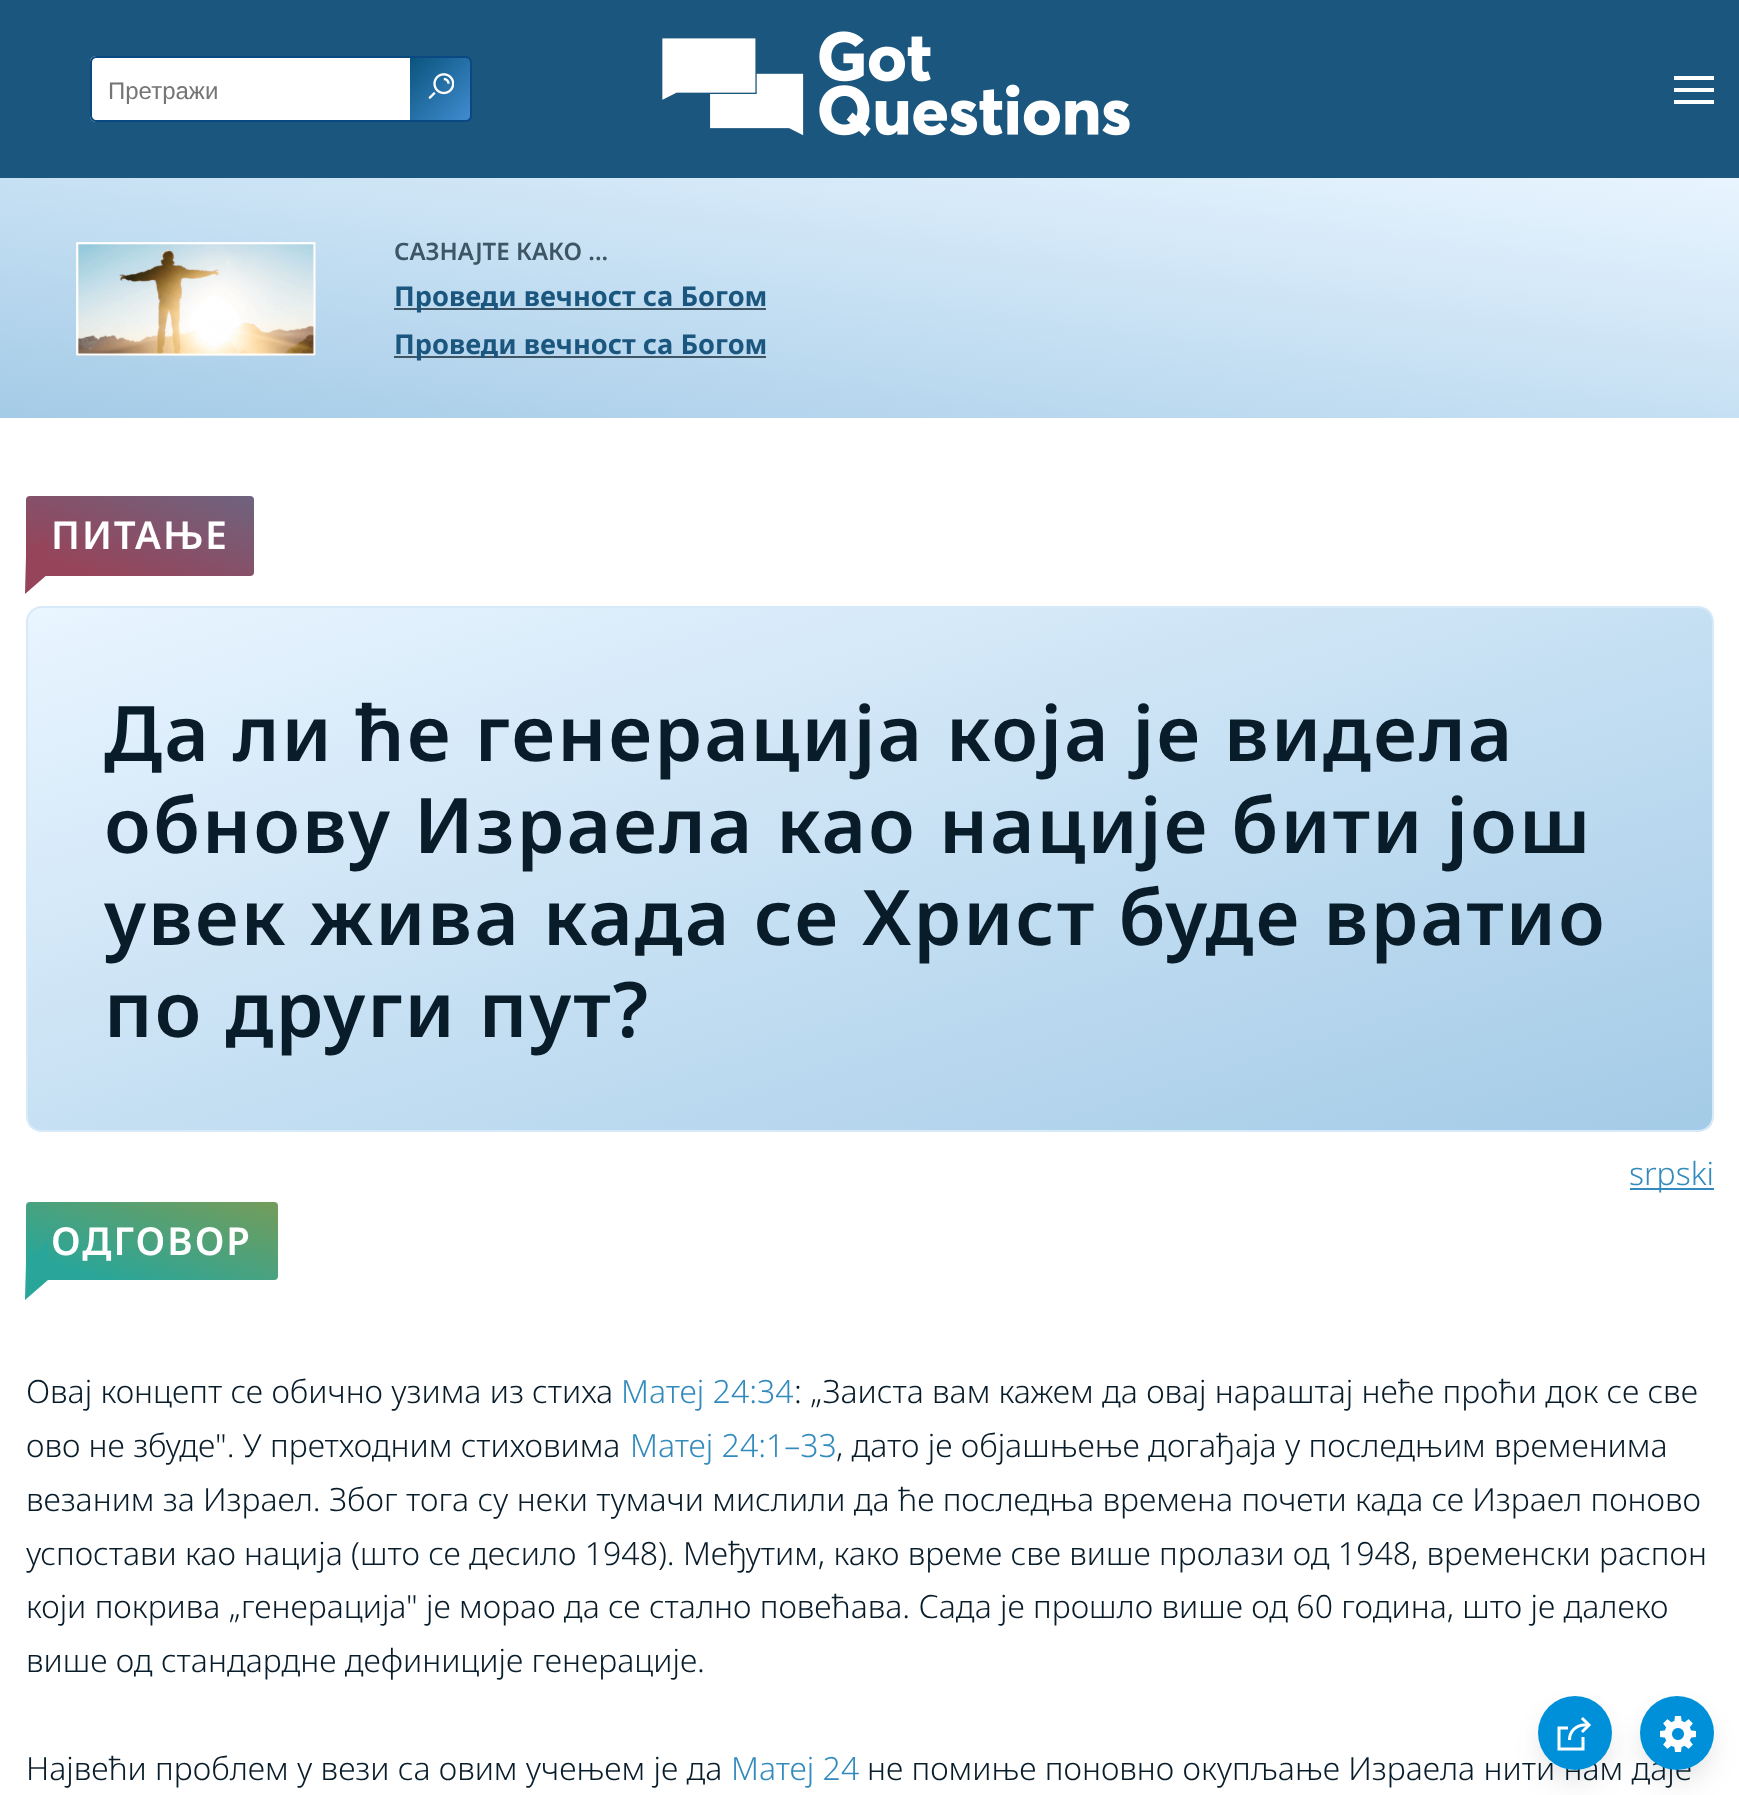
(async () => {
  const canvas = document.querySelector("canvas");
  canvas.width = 1739;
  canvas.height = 1795;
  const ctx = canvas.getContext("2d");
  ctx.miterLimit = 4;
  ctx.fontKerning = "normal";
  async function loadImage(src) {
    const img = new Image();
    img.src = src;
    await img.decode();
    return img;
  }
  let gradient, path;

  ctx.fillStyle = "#ffffff";
  ctx.fillRect(0, 0, 1739, 1795);
  ctx.fillStyle = "#1a567e";
  ctx.fillRect(0, 0, 1739, 178);
  ctx.fillStyle = "#ffffff";
  ctx.beginPath();
  ctx.roundRect(90, 56, 320, 66, [6, 0, 0, 6]);
  ctx.fill();
  ctx.fillStyle = "#094881";
  path = new Path2D("M96 56H410V122H96C93 122 90 119 90 116V62C90 59 93 56 96 56ZM96 58H410V120H96C94 120 92 118 92 116V62C92 60 94 58 96 58Z");
  ctx.fill(path, "evenodd");
  ctx.save();
  ctx.beginPath();
  ctx.roundRect(410, 56, 62, 66, [0, 6, 6, 0]);
  ctx.clip();
  gradient = ctx.createLinearGradient(469, -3, 531, 57);
  gradient.addColorStop(0, "#0a547d");
  gradient.addColorStop(1, "#408cd0");
  ctx.fillStyle = gradient;
  ctx.fillRect(470, 57, 2, 1);
  ctx.restore();
  gradient = ctx.createLinearGradient(409, 59, 471, 119);
  gradient.addColorStop(0, "#0a547d");
  gradient.addColorStop(1, "#408cd0");
  ctx.fillStyle = gradient;
  ctx.fillRect(410, 58, 60, 62);
  ctx.fillStyle = "#094881";
  path = new Path2D("M410 56H466C469 56 472 59 472 62V116C472 119 469 122 466 122H410ZM410 58H466C468 58 470 60 470 62V116C470 118 468 120 466 120H410Z");
  ctx.fill(path, "evenodd");
  ctx.drawImage(await loadImage("img/1.png"), 428, 73, 26, 26);
  ctx.drawImage(await loadImage("img/2.png"), 662, 31, 468, 106);
  ctx.fillStyle = "#ffffff";
  path = new Path2D("M1674 76H1714V80H1674ZM1674 88H1714V92H1674ZM1674 100H1714V104H1674Z");
  ctx.fill(path);
  gradient = ctx.createLinearGradient(838, 534, 902, 62);
  gradient.addColorStop(0, "#a4cbe7");
  gradient.addColorStop(1, "#e9f5ff");
  ctx.fillStyle = gradient;
  ctx.fillRect(0, 178, 1739, 240);
  ctx.drawImage(await loadImage("img/3.png"), 76, 242, 240, 114);
  ctx.fillStyle = "#3d5565";
  ctx.fillRect(394, 308, 372, 2);
  ctx.fillRect(394, 356, 372, 2);
  gradient = ctx.createLinearGradient(115, 607, 165, 465);
  gradient.addColorStop(0.15, "#96445a");
  gradient.addColorStop(1, "#6f637e");
  ctx.fillStyle = gradient;
  ctx.beginPath();
  ctx.roundRect(26, 496, 228, 80, 4);
  ctx.fill();
  ctx.fillStyle = "#96445a";
  path = new Path2D("M26 556L48 536V574L25 594Z");
  ctx.fill(path);
  ctx.save();
  ctx.beginPath();
  ctx.roundRect(26, 606, 1688, 526, 16);
  ctx.clip();
  gradient = ctx.createLinearGradient(722, 393, 1018, 1345);
  gradient.addColorStop(0, "#e9f5ff");
  gradient.addColorStop(1, "#a4cbe7");
  ctx.fillStyle = gradient;
  ctx.fillRect(28, 608, 1684, 522);
  ctx.restore();
  ctx.beginPath();
  ctx.roundRect(27, 607, 1686, 524, 15);
  ctx.strokeStyle = "#d6eaf9";
  ctx.lineWidth = 2;
  ctx.stroke();
  ctx.fillStyle = "#338bbd";
  ctx.fillRect(1630, 1188, 84, 2);
  gradient = ctx.createLinearGradient(130, 1312, 174, 1170);
  gradient.addColorStop(0.15, "#29a699");
  gradient.addColorStop(1, "#749c5a");
  ctx.fillStyle = gradient;
  ctx.beginPath();
  ctx.roundRect(26, 1202, 252, 78, 4);
  ctx.fill();
  ctx.fillStyle = "#29a699";
  path = new Path2D("M26 1262L48 1242V1280L25 1300Z");
  ctx.fill(path);
  ctx.fillStyle = "rgba(0, 0, 0, 0.05)";
  ctx.filter = "blur(11px)";
  ctx.beginPath();
  ctx.roundRect(1544, 1708, 62, 62, 31);
  ctx.fill();
  ctx.filter = "none";
  ctx.filter = "blur(11px)";
  ctx.beginPath();
  ctx.roundRect(1646, 1708, 62, 62, 31);
  ctx.fill();
  ctx.filter = "none";
  ctx.fillStyle = "rgba(0, 0, 0, 0.1)";
  ctx.filter = "blur(16px)";
  ctx.beginPath();
  ctx.roundRect(1646, 1718, 62, 62, 31);
  ctx.fill();
  ctx.filter = "none";
  ctx.font = "24px Liberation Sans";
  ctx.fillStyle = "#757575";
  ctx.fillText("Претражи", 108, 99);
  ctx.font = "600 24px Noto Sans";
  ctx.fillStyle = "#3d5565";
  ctx.fillText("САЗНАЈТЕ КАКО ...", 394, 260);
  ctx.font = "bold 27.25px Noto Sans";
  ctx.fillStyle = "#1a567e";
  ctx.fillText("Проведи вечност са Богом", 394, 306);
  ctx.fillText("Проведи вечност са Богом", 394, 354);
  ctx.letterSpacing = "2px";
  ctx.font = "600 38.5px Noto Sans";
  ctx.fillStyle = "#ffffff";
  ctx.fillText("ПИТАЊЕ", 51, 549);
  ctx.font = "600 76.75px Noto Sans";
  ctx.fillStyle = "#081c2a";
  ctx.fillText("Да ли ће генерација која је видела", 104, 761);
  ctx.fillText("обнову Израела као нације бити још", 104, 853);
  ctx.wordSpacing = "0.25px";
  ctx.fillText("увек жива када се Христ буде вратио", 104, 945);
  ctx.wordSpacing = "0px";
  ctx.fillText("по други пут?", 104, 1037);
  ctx.letterSpacing = "0px";
  ctx.font = "300 32px Noto Sans";
  ctx.fillStyle = "#338bbd";
  ctx.fillText("srpski", 1629, 1185);
  ctx.letterSpacing = "2px";
  ctx.font = "600 38.5px Noto Sans";
  ctx.fillStyle = "#ffffff";
  ctx.fillText("ОДГОВОР", 51, 1255);
  ctx.letterSpacing = "0px";
  ctx.font = "300 32px Noto Sans";
  ctx.fillStyle = "#081c2a";
  ctx.fillText("Овај концепт се обично узима из стиха", 26, 1403);
  ctx.fillStyle = "#338bbd";
  ctx.fillText("Матеј 24:34", 621, 1403);
  ctx.fillStyle = "#081c2a";
  ctx.fillText(": „Заиста вам кажем да овај нараштај неће проћи док се све", 794, 1403);
  ctx.fillText("ово не збуде\". У претходним стиховима", 26, 1457);
  ctx.fillStyle = "#338bbd";
  ctx.fillText("Матеј 24:1–33", 630, 1457);
  ctx.fillStyle = "#081c2a";
  for (const [text, x, y] of [
    [", дато је објашњење догађаја у последњим временима", 836, 1457],
    ["везаним за Израел. Због тога су неки тумачи мислили да ће последња времена почети када се Израел поново", 26, 1511],
    ["успостави као нација (што се десило 1948). Међутим, како време све више пролази од 1948, временски распон", 26, 1565],
    ["који покрива „генерација\" је морао да се стално повећава. Сада је прошло више од 60 година, што је далеко", 26, 1618],
    ["више од стандардне дефиниције генерације.", 26, 1672],
    ["Највећи проблем у вези са овим учењем је да", 26, 1780],
  ]) {
    ctx.fillText(text, x, y);
  }
  ctx.fillStyle = "#338bbd";
  ctx.fillText("Матеј 24", 731, 1780);
  ctx.fillStyle = "#081c2a";
  ctx.fillText("не помиње поновно окупљање Израела нити нам даје", 867, 1780);
  ctx.fillStyle = "#0090d9";
  ctx.beginPath();
  ctx.arc(1677, 1733, 37, 0, Math.PI * 2);
  ctx.fill();
  ctx.fillStyle = "rgba(0, 0, 0, 0.1)";
  ctx.filter = "blur(16px)";
  ctx.beginPath();
  ctx.roundRect(1544, 1718, 62, 62, 31);
  ctx.fill();
  ctx.filter = "none";
  ctx.fillStyle = "#0090d9";
  ctx.beginPath();
  ctx.arc(1575, 1733, 37, 0, Math.PI * 2);
  ctx.fill();
  path = new Path2D("M1583 1738.5V1749H1559V1728H1566.5");
  ctx.strokeStyle = "#ffffff";
  ctx.lineWidth = 3;
  ctx.lineCap = "square";
  ctx.stroke(path);
  path = new Path2D("M1569.5 1740C1569.5 1731.5 1576 1725 1584.5 1725H1589");
  ctx.lineCap = "butt";
  ctx.stroke(path);
  path = new Path2D("M1583 1731L1589 1725L1583 1719");
  ctx.lineCap = "square";
  ctx.stroke(path);
  ctx.drawImage(await loadImage("img/4.png"), 1660, 1716, 36, 36);
})();
